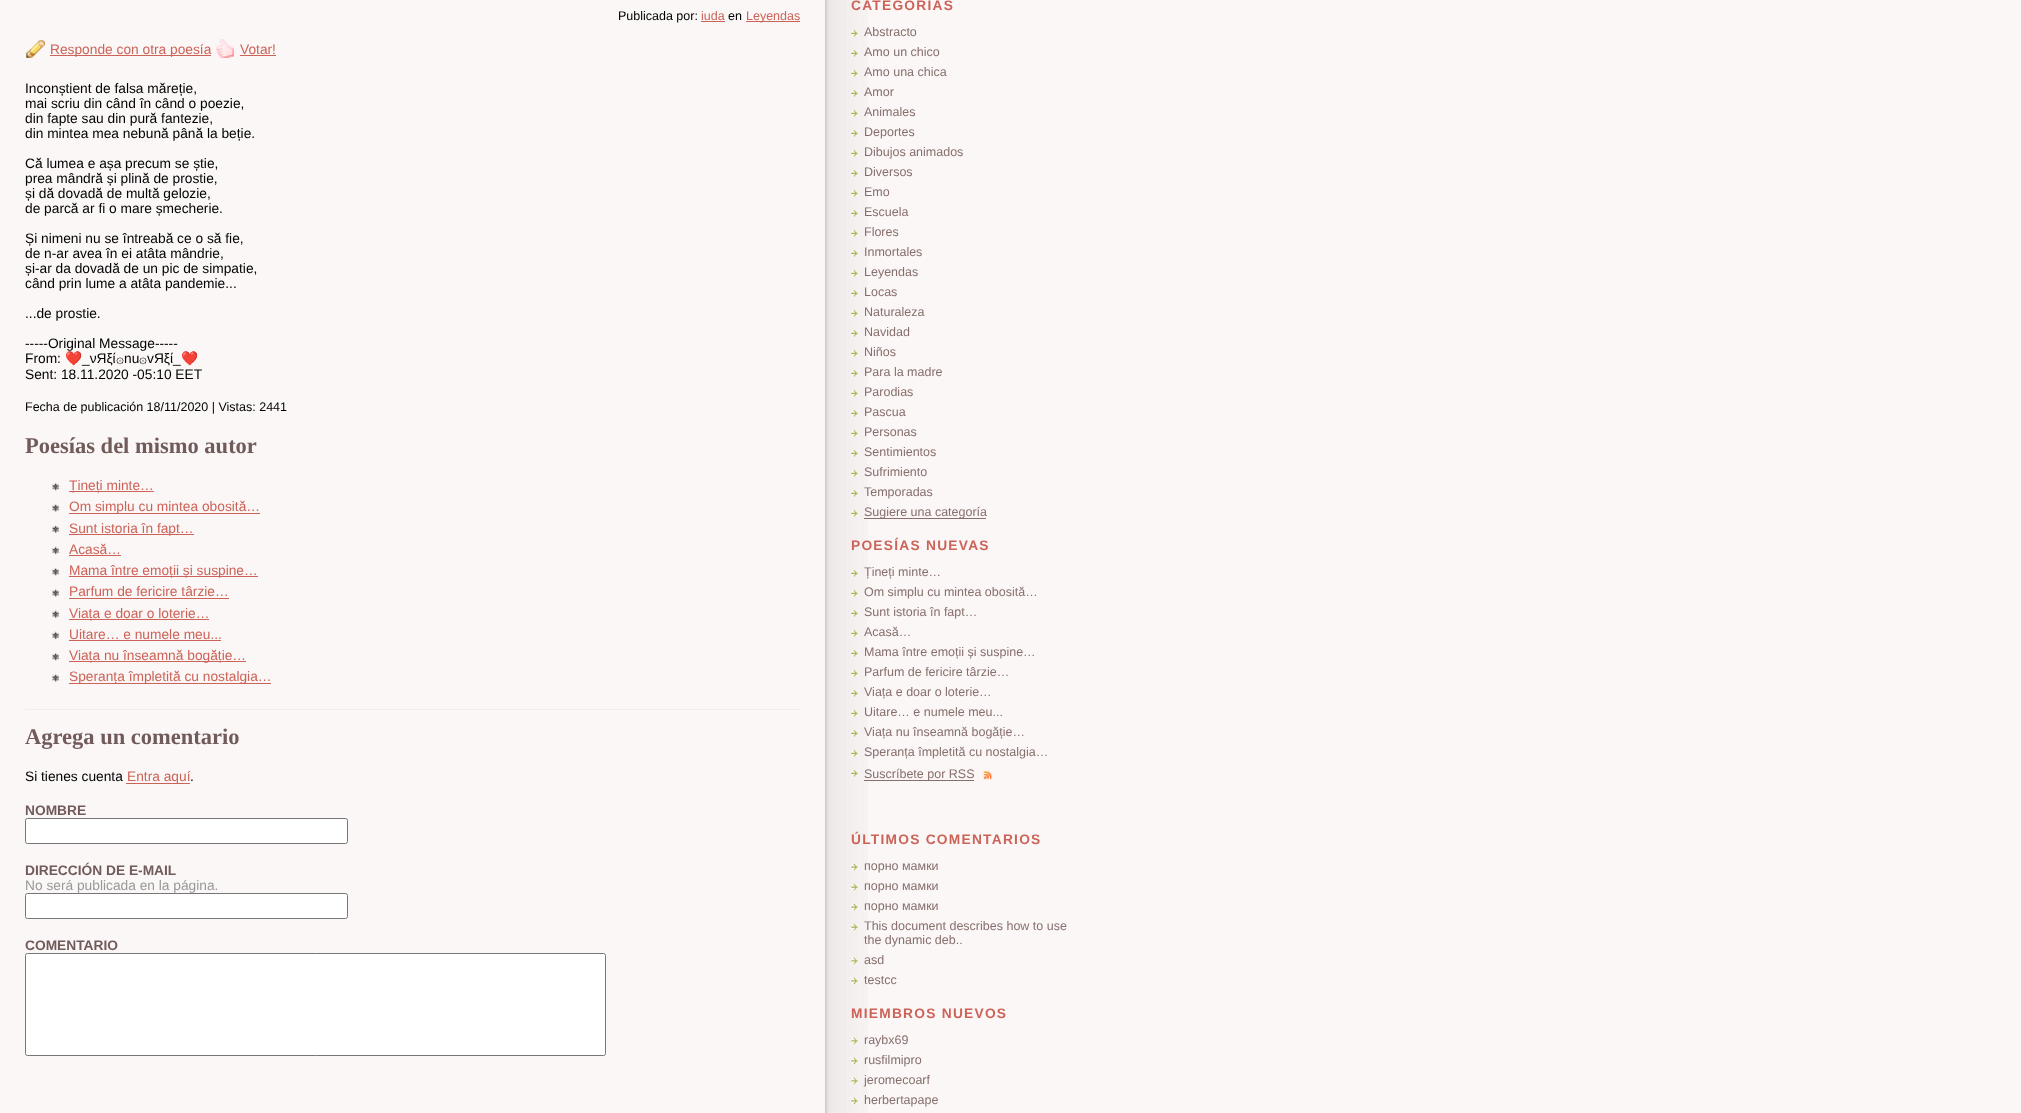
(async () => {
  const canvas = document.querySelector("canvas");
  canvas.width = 2021;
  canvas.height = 1113;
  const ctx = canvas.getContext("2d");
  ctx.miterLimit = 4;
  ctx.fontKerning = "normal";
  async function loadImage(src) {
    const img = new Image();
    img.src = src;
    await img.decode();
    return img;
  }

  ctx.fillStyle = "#fbf7f7";
  ctx.fillRect(0, 0, 2021, 1113);
  ctx.fillStyle = "#cc6358";
  ctx.fillRect(701, 21, 24, 1);
  ctx.fillRect(746, 21, 54, 1);
  ctx.drawImage(await loadImage("img/1.png"), 26, 40, 19, 18);
  ctx.fillRect(50, 55, 161, 1);
  ctx.drawImage(await loadImage("img/2.png"), 216, 39, 18, 19);
  ctx.fillRect(240, 55, 36, 1);
  ctx.drawImage(await loadImage("img/3.png"), 51, 481, 10, 10);
  ctx.fillRect(69, 491, 85, 1);
  ctx.drawImage(await loadImage("img/4.png"), 51, 503, 10, 9);
  ctx.fillRect(69, 513, 191, 1);
  ctx.drawImage(await loadImage("img/5.png"), 51, 524, 10, 10);
  ctx.fillRect(69, 534, 125, 1);
  ctx.drawImage(await loadImage("img/6.png"), 51, 545, 10, 10);
  ctx.fillRect(69, 555, 52, 1);
  ctx.drawImage(await loadImage("img/7.png"), 51, 566, 10, 10);
  ctx.fillRect(69, 576, 189, 1);
  ctx.drawImage(await loadImage("img/4.png"), 51, 588, 10, 9);
  ctx.fillRect(69, 598, 160, 1);
  ctx.drawImage(await loadImage("img/5.png"), 51, 609, 10, 10);
  ctx.fillRect(69, 619, 140, 1);
  ctx.drawImage(await loadImage("img/6.png"), 51, 630, 10, 10);
  ctx.fillRect(69, 640, 152, 1);
  ctx.drawImage(await loadImage("img/7.png"), 51, 651, 10, 10);
  ctx.fillRect(69, 661, 177, 1);
  ctx.drawImage(await loadImage("img/4.png"), 51, 673, 10, 9);
  for (const [x, y, w, h, color] of [
    [69, 683, 202, 1, "#cc6358"],
    [25, 709, 775, 1, "#eeeeee"],
    [126, 783, 64, 1, "#cc6358"],
  ]) {
    ctx.fillStyle = color;
    ctx.fillRect(x, y, w, h);
  }
  ctx.fillStyle = "#ffffff";
  ctx.beginPath();
  ctx.roundRect(25.5, 818.5, 322, 25, 2);
  ctx.fill();
  ctx.strokeStyle = "#767676";
  ctx.stroke();
  ctx.beginPath();
  ctx.roundRect(25.5, 893.5, 322, 25, 2);
  ctx.fill();
  ctx.stroke();
  ctx.beginPath();
  ctx.roundRect(25.5, 953.5, 580, 102, 2);
  ctx.fill();
  ctx.stroke();
  ctx.drawImage(await loadImage("img/8.png"), 825, 0, 43, 1113);
  ctx.drawImage(await loadImage("img/9.png"), 851, 30, 7, 7);
  ctx.drawImage(await loadImage("img/9.png"), 851, 50, 7, 7);
  ctx.drawImage(await loadImage("img/9.png"), 851, 70, 7, 7);
  ctx.drawImage(await loadImage("img/9.png"), 851, 90, 7, 7);
  ctx.drawImage(await loadImage("img/9.png"), 851, 110, 7, 7);
  ctx.drawImage(await loadImage("img/9.png"), 851, 130, 7, 7);
  ctx.drawImage(await loadImage("img/9.png"), 851, 150, 7, 7);
  ctx.drawImage(await loadImage("img/9.png"), 851, 170, 7, 7);
  ctx.drawImage(await loadImage("img/9.png"), 851, 190, 7, 7);
  ctx.drawImage(await loadImage("img/9.png"), 851, 210, 7, 7);
  ctx.drawImage(await loadImage("img/9.png"), 851, 230, 7, 7);
  ctx.drawImage(await loadImage("img/9.png"), 851, 250, 7, 7);
  ctx.drawImage(await loadImage("img/9.png"), 851, 270, 7, 7);
  ctx.drawImage(await loadImage("img/9.png"), 851, 290, 7, 7);
  ctx.drawImage(await loadImage("img/9.png"), 851, 310, 7, 7);
  ctx.drawImage(await loadImage("img/9.png"), 851, 330, 7, 7);
  ctx.drawImage(await loadImage("img/9.png"), 851, 350, 7, 7);
  ctx.drawImage(await loadImage("img/9.png"), 851, 370, 7, 7);
  ctx.drawImage(await loadImage("img/9.png"), 851, 390, 7, 7);
  ctx.drawImage(await loadImage("img/9.png"), 851, 410, 7, 7);
  ctx.drawImage(await loadImage("img/9.png"), 851, 430, 7, 7);
  ctx.drawImage(await loadImage("img/9.png"), 851, 450, 7, 7);
  ctx.drawImage(await loadImage("img/9.png"), 851, 470, 7, 7);
  ctx.drawImage(await loadImage("img/9.png"), 851, 490, 7, 7);
  ctx.drawImage(await loadImage("img/9.png"), 851, 510, 7, 7);
  ctx.fillStyle = "#876f6d";
  ctx.fillRect(864, 518, 122, 1);
  ctx.drawImage(await loadImage("img/9.png"), 851, 570, 7, 7);
  ctx.drawImage(await loadImage("img/9.png"), 851, 590, 7, 7);
  ctx.drawImage(await loadImage("img/9.png"), 851, 610, 7, 7);
  ctx.drawImage(await loadImage("img/9.png"), 851, 630, 7, 7);
  ctx.drawImage(await loadImage("img/9.png"), 851, 650, 7, 7);
  ctx.drawImage(await loadImage("img/9.png"), 851, 670, 7, 7);
  ctx.drawImage(await loadImage("img/9.png"), 851, 690, 7, 7);
  ctx.drawImage(await loadImage("img/9.png"), 851, 710, 7, 7);
  ctx.drawImage(await loadImage("img/9.png"), 851, 730, 7, 7);
  ctx.drawImage(await loadImage("img/9.png"), 851, 750, 7, 7);
  ctx.drawImage(await loadImage("img/9.png"), 851, 770, 7, 7);
  ctx.fillRect(864, 780, 110, 1);
  ctx.drawImage(await loadImage("img/10.png"), 983, 771, 9, 9);
  ctx.drawImage(await loadImage("img/11.png"), 851, 864, 7, 7);
  ctx.drawImage(await loadImage("img/11.png"), 851, 884, 7, 7);
  ctx.drawImage(await loadImage("img/11.png"), 851, 904, 7, 7);
  ctx.drawImage(await loadImage("img/11.png"), 851, 924, 7, 7);
  ctx.drawImage(await loadImage("img/12.png"), 851, 957, 7, 7);
  ctx.drawImage(await loadImage("img/12.png"), 851, 977, 7, 7);
  ctx.drawImage(await loadImage("img/12.png"), 851, 1037, 7, 7);
  ctx.drawImage(await loadImage("img/12.png"), 851, 1057, 7, 7);
  ctx.drawImage(await loadImage("img/12.png"), 851, 1077, 7, 7);
  ctx.drawImage(await loadImage("img/12.png"), 851, 1097, 7, 7);
  ctx.font = "12.5px Liberation Sans";
  ctx.fillStyle = "#000000";
  ctx.fillText("Publicada por:", 618, 20);
  ctx.fillStyle = "#cc6358";
  ctx.fillText("iuda", 701, 20);
  ctx.fillStyle = "#000000";
  ctx.fillText("en", 728, 20);
  ctx.fillStyle = "#cc6358";
  ctx.fillText("Leyendas", 746, 20);
  ctx.font = "13.75px Liberation Sans";
  ctx.fillText("Responde con otra poesía", 50, 54);
  ctx.fillText("Votar!", 240, 54);
  ctx.fillStyle = "#000000";
  for (const [text, x, y] of [
    ["Inconștient de falsa măreție,", 25, 93],
    ["mai scriu din când în când o poezie,", 25, 108],
    ["din fapte sau din pură fantezie,", 25, 123],
    ["din mintea mea nebună până la beție.", 25, 138],
    ["Că lumea e așa precum se știe,", 25, 168],
    ["prea mândră și plină de prostie,", 25, 183],
    ["și dă dovadă de multă gelozie,", 25, 198],
    ["de parcă ar fi o mare șmecherie.", 25, 213],
    ["Și nimeni nu se întreabă ce o să fie,", 25, 243],
    ["de n-ar avea în ei atâta mândrie,", 25, 258],
    ["și-ar da dovadă de un pic de simpatie,", 25, 273],
    ["când prin lume a atâta pandemie...", 25, 288],
    ["...de prostie.", 25, 318],
    ["-----Original Message-----", 25, 348],
    ["From:", 25, 363],
  ]) {
    ctx.fillText(text, x, y);
  }
  ctx.font = "13.75px Noto Color Emoji";
  ctx.fillText("❤️", 65, 363);
  ctx.font = "13.75px Liberation Sans";
  ctx.fillText("_νЯξί", 82, 363);
  ctx.font = "13.75px Cascadia Code";
  ctx.fillText("۞", 116, 363);
  ctx.font = "13.75px Liberation Sans";
  ctx.fillText("nu", 124, 363);
  ctx.font = "13.75px Cascadia Code";
  ctx.fillText("۞", 139, 363);
  ctx.font = "13.75px Liberation Sans";
  ctx.fillText("vЯξί_", 147, 363);
  ctx.font = "13.75px Noto Color Emoji";
  ctx.fillText("❤️", 181, 363);
  ctx.font = "13.75px Liberation Sans";
  ctx.fillText("Sent: 18.11.2020 -05:10 EET", 25, 379);
  ctx.font = "12.5px Liberation Sans";
  ctx.fillText("Fecha de publicación 18/11/2020 | Vistas: 2441", 25, 411);
  ctx.font = "bold 22.5px Liberation Serif";
  ctx.fillStyle = "#705b5a";
  ctx.fillText("Poesías del mismo autor", 25, 453);
  ctx.font = "13.75px Liberation Sans";
  ctx.fillStyle = "#cc6358";
  for (const [text, x, y] of [
    ["Țineți minte…", 69, 490],
    ["Om simplu cu mintea obosită…", 69, 511],
    ["Sunt istoria în fapt…", 69, 533],
    ["Acasă…", 69, 554],
    ["Mama între emoții și suspine…", 69, 575],
    ["Parfum de fericire târzie…", 69, 596],
    ["Viața e doar o loterie…", 69, 618],
    ["Uitare… e numele meu...", 69, 639],
    ["Viața nu înseamnă bogăție…", 69, 660],
    ["Speranța împletită cu nostalgia…", 69, 681],
  ]) {
    ctx.fillText(text, x, y);
  }
  ctx.font = "bold 22.5px Liberation Serif";
  ctx.fillStyle = "#705b5a";
  ctx.fillText("Agrega un comentario", 25, 744);
  ctx.font = "13.75px Liberation Sans";
  ctx.fillStyle = "#000000";
  ctx.fillText("Si tienes cuenta", 25, 781);
  ctx.fillStyle = "#cc6358";
  ctx.fillText("Entra aquí", 127, 781);
  ctx.fillStyle = "#000000";
  ctx.fillText(".", 190, 781);
  ctx.font = "bold 13.75px Liberation Sans";
  ctx.fillStyle = "#705b5a";
  ctx.fillText("NOMBRE", 25, 815);
  ctx.fillText("DIRECCIÓN DE E-MAIL", 25, 875);
  ctx.font = "13.75px Liberation Sans";
  ctx.fillStyle = "#999999";
  ctx.fillText("No será publicada en la página.", 25, 890);
  ctx.font = "bold 13.75px Liberation Sans";
  ctx.fillStyle = "#705b5a";
  ctx.fillText("COMENTARIO", 25, 950);
  ctx.letterSpacing = "1.25px";
  ctx.fillStyle = "#cc6358";
  ctx.fillText("CATEGORIAS", 851, 10);
  ctx.letterSpacing = "0px";
  ctx.font = "12.5px Liberation Sans";
  ctx.fillStyle = "#876f6d";
  for (const [text, x, y] of [
    ["Abstracto", 864, 36],
    ["Amo un chico", 864, 56],
    ["Amo una chica", 864, 76],
    ["Amor", 864, 96],
    ["Animales", 864, 116],
    ["Deportes", 864, 136],
    ["Dibujos animados", 864, 156],
    ["Diversos", 864, 176],
    ["Emo", 864, 196],
    ["Escuela", 864, 216],
    ["Flores", 864, 236],
    ["Inmortales", 864, 256],
    ["Leyendas", 864, 276],
    ["Locas", 864, 296],
    ["Naturaleza", 864, 316],
    ["Navidad", 864, 336],
    ["Niños", 864, 356],
    ["Para la madre", 864, 376],
    ["Parodias", 864, 396],
    ["Pascua", 864, 416],
    ["Personas", 864, 436],
    ["Sentimientos", 864, 456],
    ["Sufrimiento", 864, 476],
    ["Temporadas", 864, 496],
    ["Sugiere una categoría", 864, 516],
  ]) {
    ctx.fillText(text, x, y);
  }
  ctx.letterSpacing = "1.25px";
  ctx.font = "bold 13.75px Liberation Sans";
  ctx.fillStyle = "#cc6358";
  ctx.fillText("POESÍAS NUEVAS", 851, 550);
  ctx.letterSpacing = "0px";
  ctx.font = "12.5px Liberation Sans";
  ctx.fillStyle = "#876f6d";
  for (const [text, x, y] of [
    ["Țineți minte…", 864, 576],
    ["Om simplu cu mintea obosită…", 864, 596],
    ["Sunt istoria în fapt…", 864, 616],
    ["Acasă…", 864, 636],
    ["Mama între emoții și suspine…", 864, 656],
    ["Parfum de fericire târzie…", 864, 676],
    ["Viața e doar o loterie…", 864, 696],
    ["Uitare… e numele meu...", 864, 716],
    ["Viața nu înseamnă bogăție…", 864, 736],
    ["Speranța împletită cu nostalgia…", 864, 756],
    ["Suscríbete por RSS", 864, 778],
  ]) {
    ctx.fillText(text, x, y);
  }
  ctx.letterSpacing = "1.25px";
  ctx.font = "bold 13.75px Liberation Sans";
  ctx.fillStyle = "#cc6358";
  ctx.fillText("ÚLTIMOS COMENTARIOS", 851, 844);
  ctx.letterSpacing = "0px";
  ctx.font = "12.5px Liberation Sans";
  ctx.fillStyle = "#876f6d";
  for (const [text, x, y] of [
    ["порно мамки", 864, 870],
    ["порно мамки", 864, 890],
    ["порно мамки", 864, 910],
    ["This document describes how to use", 864, 930],
    ["the dynamic deb..", 864, 944],
    ["asd", 864, 964],
    ["testcc", 864, 984],
  ]) {
    ctx.fillText(text, x, y);
  }
  ctx.letterSpacing = "1.25px";
  ctx.font = "bold 13.75px Liberation Sans";
  ctx.fillStyle = "#cc6358";
  ctx.fillText("MIEMBROS NUEVOS", 851, 1018);
  ctx.letterSpacing = "0px";
  ctx.font = "12.5px Liberation Sans";
  ctx.fillStyle = "#876f6d";
  for (const [text, x, y] of [
    ["raybx69", 864, 1044],
    ["rusfilmipro", 864, 1064],
    ["jeromecoarf", 864, 1084],
    ["herbertapape", 864, 1104],
  ]) {
    ctx.fillText(text, x, y);
  }
})();
